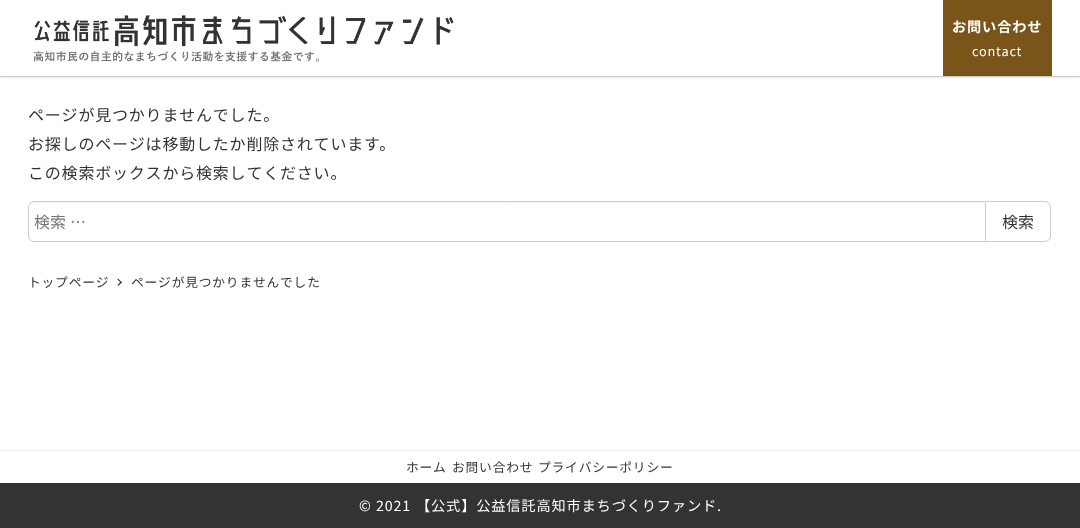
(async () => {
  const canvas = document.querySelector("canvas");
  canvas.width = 1080;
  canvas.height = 528;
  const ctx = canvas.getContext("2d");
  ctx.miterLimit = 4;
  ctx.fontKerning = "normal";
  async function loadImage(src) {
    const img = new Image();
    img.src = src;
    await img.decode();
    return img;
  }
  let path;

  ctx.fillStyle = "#ffffff";
  ctx.fillRect(0, 0, 1080, 528);
  ctx.save();
  ctx.beginPath();
  ctx.rect(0, 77, 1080, 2);
  ctx.clip();
  ctx.fillStyle = "rgba(0, 0, 0, 0.05)";
  ctx.filter = "blur(1px)";
  ctx.beginPath();
  ctx.rect(-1, 0, 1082, 79);
  ctx.fill();
  ctx.filter = "none";
  ctx.restore();
  ctx.fillStyle = "#cccccc";
  ctx.fillRect(0, 76, 1080, 1);
  ctx.drawImage(await loadImage("img/1.png"), 33, 15, 421, 47);
  ctx.fillStyle = "#79551a";
  ctx.fillRect(943, 0, 109, 76);
  ctx.beginPath();
  ctx.roundRect(985.5, 201.5, 65, 40, [0, 5.5, 5.5, 0]);
  ctx.strokeStyle = "#cccccc";
  ctx.stroke();
  ctx.fillStyle = "#ffffff";
  ctx.beginPath();
  ctx.roundRect(28, 201, 958, 41, [6, 0, 0, 6]);
  ctx.fill();
  ctx.fillStyle = "#f6f6f6";
  path = new Path2D("M34 203H985V202H34C31 202 29 205 29 208C29 205 31 203 34 203Z");
  ctx.fill(path);
  ctx.beginPath();
  ctx.roundRect(28.5, 201.5, 957, 40, [5.5, 0, 0, 5.5]);
  ctx.stroke();
  ctx.fillStyle = "#333333";
  path = new Path2D("M118 278.5L122 282.5L121 283L117.5 279.5Z");
  ctx.fill(path);
  path = new Path2D("M121 281.5L122 282.5L118 286L117.5 285Z");
  ctx.fill(path);
  ctx.fillStyle = "#eeeeee";
  ctx.fillRect(0, 450, 1080, 1);
  ctx.fillStyle = "#333333";
  ctx.fillRect(0, 483, 1080, 45);
  ctx.letterSpacing = "0.8px";
  ctx.font = "bold 14.25px Noto Sans JP";
  ctx.fillStyle = "#ffffff";
  ctx.fillText("お問い合わせ", 952, 32);
  ctx.font = "12.75px Noto Sans JP";
  ctx.fillText("contact", 972, 56);
  ctx.font = "16px Noto Sans JP";
  ctx.fillStyle = "#333333";
  for (const [text, x, y] of [
    ["ページが見つかりませんでした。", 28, 121],
    ["お探しのページは移動したか削除されています。", 28, 150],
    ["この検索ボックスから検索してください。", 28, 179],
  ]) {
    ctx.fillText(text, x, y);
  }
  ctx.letterSpacing = "0px";
  ctx.fillStyle = "#757575";
  ctx.fillText("検索", 34, 228);
  ctx.fillText("…", 70, 228);
  ctx.fillStyle = "#333333";
  ctx.fillText("検索", 1002, 228);
  ctx.letterSpacing = "0.8px";
  ctx.font = "12.75px Noto Sans JP";
  for (const [text, x, y] of [
    ["トップページ", 28, 287],
    ["ページが見つかりませんでした", 131, 287],
    ["ホーム", 406, 472],
    ["お問い合わせ", 452, 472],
    ["プライバシーポリシー", 538, 472],
  ]) {
    ctx.fillText(text, x, y);
  }
  ctx.font = "14.25px Noto Sans JP";
  ctx.fillStyle = "#ffffff";
  for (const [text, x, y] of [
    ["©", 359, 511],
    ["2021", 376, 511],
    ["【公式】公益信託高知市まちづくりファンド.", 416, 511],
  ]) {
    ctx.fillText(text, x, y);
  }
})();
